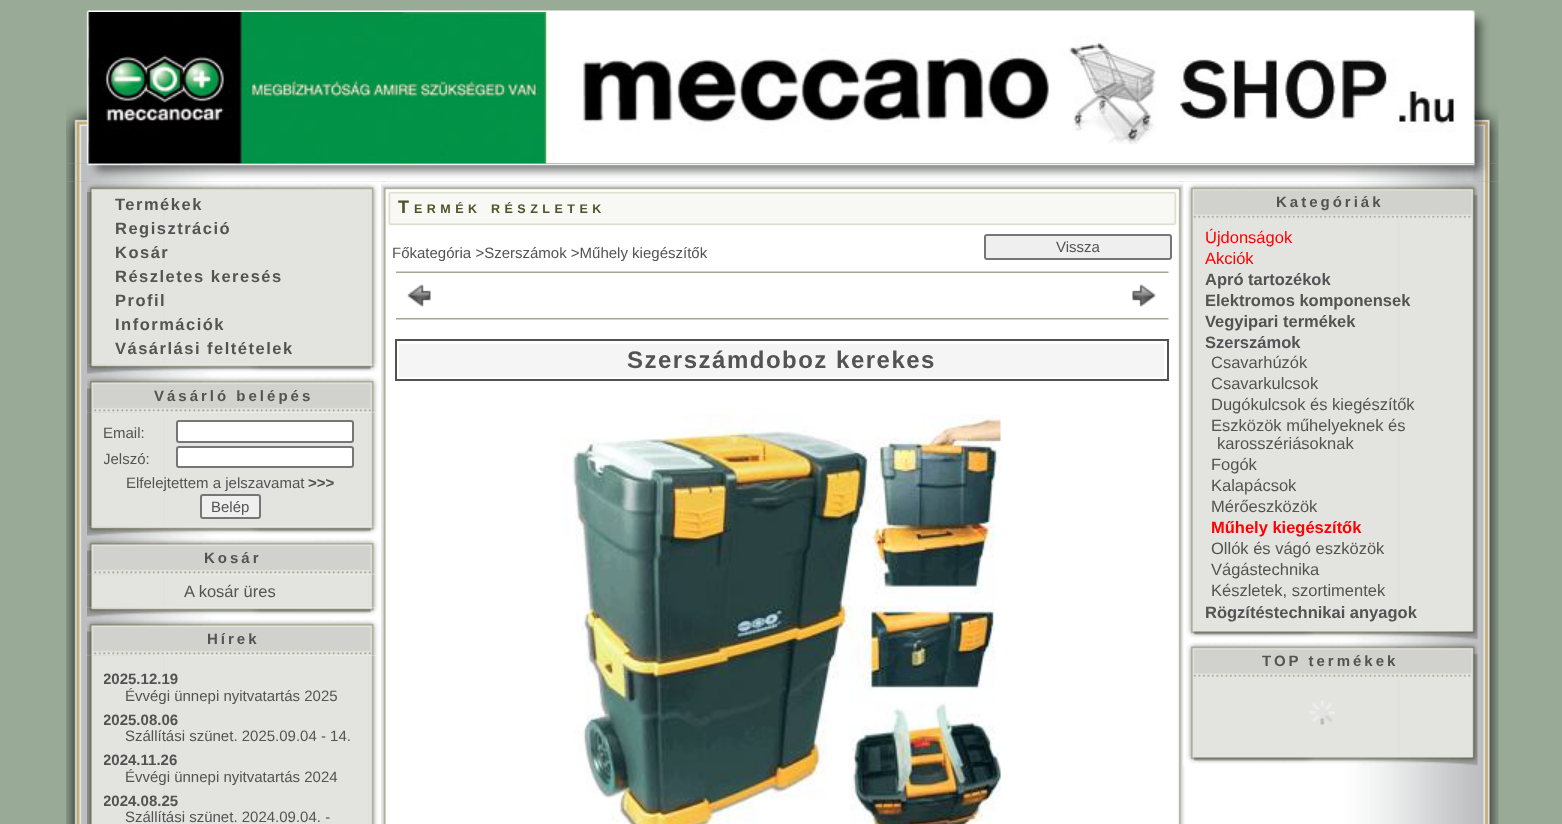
(async () => {
  const canvas = document.querySelector("canvas");
  canvas.width = 1562;
  canvas.height = 824;
  const ctx = canvas.getContext("2d");
  ctx.miterLimit = 4;
  ctx.fontKerning = "normal";
  async function loadImage(src) {
    const img = new Image();
    img.src = src;
    await img.decode();
    return img;
  }

  ctx.fillStyle = "#99ab97";
  ctx.fillRect(0, 0, 1562, 824);
  ctx.drawImage(await loadImage("img/1.png"), 86, 10, 1389, 2);
  ctx.drawImage(await loadImage("img/2.png"), 66, 12, 1433, 152);
  ctx.drawImage(await loadImage("img/5.png"), 66, 163, 1433, 19);
  ctx.fillStyle = "#d1d1cd";
  ctx.fillRect(89, 163, 1384, 1);
  ctx.drawImage(await loadImage("img/3.png"), 88, 12, 1385, 152);
  ctx.drawImage(await loadImage("img/4.png"), 88, 12, 1385, 152);
  ctx.drawImage(await loadImage("img/6.png"), 66, 181, 1433, 643);
  ctx.drawImage(await loadImage("img/7.png"), 87, 181, 294, 11);
  ctx.drawImage(await loadImage("img/8.png"), 87, 192, 294, 173);
  ctx.drawImage(await loadImage("img/9.png"), 87, 364, 294, 11);
  ctx.drawImage(await loadImage("img/10.png"), 87, 375, 294, 38);
  ctx.drawImage(await loadImage("img/12.png"), 87, 526, 294, 11);
  ctx.drawImage(await loadImage("img/11.png"), 87, 412, 294, 115);
  ctx.fillStyle = "#ffffff";
  ctx.beginPath();
  ctx.roundRect(177, 421, 176, 21, 2);
  ctx.fill();
  ctx.strokeStyle = "#767676";
  ctx.lineWidth = 2;
  ctx.stroke();
  ctx.beginPath();
  ctx.roundRect(177, 447, 176, 20, 2);
  ctx.fill();
  ctx.stroke();
  ctx.fillStyle = "#efefef";
  ctx.beginPath();
  ctx.roundRect(201, 495, 59, 23, 2);
  ctx.fill();
  ctx.stroke();
  ctx.drawImage(await loadImage("img/10.png"), 87, 537, 294, 38);
  ctx.drawImage(await loadImage("img/12.png"), 87, 607, 294, 11);
  ctx.drawImage(await loadImage("img/13.png"), 87, 574, 294, 34);
  ctx.drawImage(await loadImage("img/10.png"), 87, 618, 294, 38);
  ctx.drawImage(await loadImage("img/14.png"), 87, 655, 294, 169);
  ctx.drawImage(await loadImage("img/15.png"), 381, 181, 803, 46);
  ctx.beginPath();
  ctx.roundRect(985, 235, 186, 24, 2);
  ctx.fill();
  ctx.stroke();
  ctx.drawImage(await loadImage("img/16.png"), 396, 271, 773, 2);
  ctx.drawImage(await loadImage("img/17.png"), 407, 284, 24, 23);
  ctx.drawImage(await loadImage("img/18.png"), 1132, 284, 24, 23);
  ctx.drawImage(await loadImage("img/19.png"), 396, 318, 773, 2);
  ctx.strokeStyle = "#535353";
  ctx.strokeRect(396, 340, 772, 40);
  ctx.fillStyle = "#f5f5f5";
  ctx.fillRect(399, 344, 765, 33);
  ctx.drawImage(await loadImage("img/20.png"), 562, 414, 439, 410);
  ctx.drawImage(await loadImage("img/21.png"), 1183, 181, 295, 38);
  ctx.drawImage(await loadImage("img/22.png"), 1183, 219, 295, 411);
  ctx.drawImage(await loadImage("img/23.png"), 1183, 630, 295, 10);
  ctx.drawImage(await loadImage("img/24.png"), 1183, 641, 295, 37);
  ctx.drawImage(await loadImage("img/25.png"), 1183, 678, 295, 78);
  ctx.drawImage(await loadImage("img/26.png"), 1309, 700, 26, 25);
  ctx.drawImage(await loadImage("img/23.png"), 1183, 756, 295, 10);
  ctx.letterSpacing = "1.5px";
  ctx.font = "bold 16.5px Liberation Sans";
  ctx.fillStyle = "#535353";
  for (const [text, x, y] of [
    ["Termékek", 115, 210],
    ["Regisztráció", 115, 234],
    ["Kosár", 115, 258],
    ["Részletes keresés", 115, 282],
    ["Profil", 115, 306],
    ["Információk", 115, 330],
    ["Vásárlási feltételek", 115, 354],
  ]) {
    ctx.fillText(text, x, y);
  }
  ctx.letterSpacing = "3px";
  ctx.font = "bold 15px Liberation Sans";
  ctx.fillText("Vásárló belépés", 154, 401);
  ctx.letterSpacing = "0px";
  ctx.font = "15px Liberation Sans";
  ctx.fillText("Email:", 103, 438);
  ctx.save();
  ctx.beginPath();
  ctx.rect(104, 420, 255, 99);
  ctx.clip();
  ctx.fillText("Jelszó:", 103, 464);
  ctx.restore();
  ctx.fillText("Elfelejtettem a jelszavamat", 126, 488);
  ctx.font = "bold 15px Liberation Sans";
  ctx.fillText(">>>", 308, 488);
  ctx.font = "15px Liberation Sans";
  ctx.fillText("Belép", 211, 512);
  ctx.letterSpacing = "3px";
  ctx.font = "bold 15px Liberation Sans";
  ctx.fillText("Kosár", 204, 563);
  ctx.letterSpacing = "0px";
  ctx.font = "16.5px Liberation Sans";
  ctx.fillText("A kosár üres", 184, 597);
  ctx.letterSpacing = "3px";
  ctx.font = "bold 15px Liberation Sans";
  ctx.fillText("Hírek", 207, 644);
  ctx.save();
  ctx.beginPath();
  ctx.rect(104, 663, 255, 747);
  ctx.clip();
  ctx.letterSpacing = "0px";
  ctx.fillText("2025.12.19", 103, 684);
  ctx.restore();
  ctx.letterSpacing = "0px";
  ctx.font = "15px Liberation Sans";
  ctx.fillText("Évvégi ünnepi nyitvatartás 2025", 125, 701);
  ctx.save();
  ctx.beginPath();
  ctx.rect(104, 663, 255, 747);
  ctx.clip();
  ctx.font = "bold 15px Liberation Sans";
  ctx.fillText("2025.08.06", 103, 725);
  ctx.restore();
  ctx.fillText("Szállítási szünet. 2025.09.04 - 14.", 125, 741);
  ctx.save();
  ctx.beginPath();
  ctx.rect(104, 663, 255, 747);
  ctx.clip();
  ctx.font = "bold 15px Liberation Sans";
  ctx.fillText("2024.11.26", 103, 765);
  ctx.restore();
  ctx.fillText("Évvégi ünnepi nyitvatartás 2024", 125, 782);
  ctx.save();
  ctx.beginPath();
  ctx.rect(104, 663, 255, 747);
  ctx.clip();
  ctx.font = "bold 15px Liberation Sans";
  ctx.fillText("2024.08.25", 103, 806);
  ctx.restore();
  ctx.fillText("Szállítási szünet. 2024.09.04. -", 125, 822);
  ctx.letterSpacing = "4.5px";
  ctx.font = "bold 18px Liberation Sans";
  ctx.fillStyle = "#51512c";
  ctx.fillText("T", 398, 213);
  ctx.font = "bold 12.5px Liberation Sans";
  ctx.fillText("ERMÉK", 414, 213);
  ctx.fillText("RÉSZLETEK", 491, 213);
  ctx.letterSpacing = "0px";
  ctx.font = "15px Liberation Sans";
  ctx.fillStyle = "#535353";
  ctx.fillText("Főkategória >Szerszámok >Műhely kiegészítők", 392, 258);
  ctx.fillText("Vissza", 1056, 252);
  ctx.letterSpacing = "1.5px";
  ctx.font = "bold 24px Liberation Sans";
  ctx.fillText("Szerszámdoboz kerekes", 627, 368);
  ctx.letterSpacing = "3px";
  ctx.font = "bold 15px Liberation Sans";
  ctx.fillText("Kategóriák", 1276, 207);
  ctx.letterSpacing = "0px";
  ctx.font = "16.5px Liberation Sans";
  ctx.fillStyle = "#ff0000";
  ctx.fillText("Újdonságok", 1205, 243);
  ctx.fillText("Akciók", 1205, 264);
  ctx.font = "bold 16.5px Liberation Sans";
  ctx.fillStyle = "#535353";
  for (const [text, x, y] of [
    ["Apró tartozékok", 1205, 285],
    ["Elektromos komponensek", 1205, 306],
    ["Vegyipari termékek", 1205, 327],
    ["Szerszámok", 1205, 348],
  ]) {
    ctx.fillText(text, x, y);
  }
  ctx.font = "16.5px Liberation Sans";
  for (const [text, x, y] of [
    ["Csavarhúzók", 1211, 368],
    ["Csavarkulcsok", 1211, 389],
    ["Dugókulcsok és kiegészítők", 1211, 410],
    ["Eszközök műhelyeknek és", 1211, 431],
    ["karosszériásoknak", 1217, 449],
    ["Fogók", 1211, 470],
    ["Kalapácsok", 1211, 491],
    ["Mérőeszközök", 1211, 512],
  ]) {
    ctx.fillText(text, x, y);
  }
  ctx.font = "bold 16.5px Liberation Sans";
  ctx.fillStyle = "#ff0000";
  ctx.fillText("Műhely kiegészítők", 1211, 533);
  ctx.font = "16.5px Liberation Sans";
  ctx.fillStyle = "#535353";
  for (const [text, x, y] of [
    ["Ollók és vágó eszközök", 1211, 554],
    ["Vágástechnika", 1211, 575],
    ["Készletek, szortimentek", 1211, 596],
  ]) {
    ctx.fillText(text, x, y);
  }
  ctx.font = "bold 16.5px Liberation Sans";
  ctx.fillText("Rögzítéstechnikai anyagok", 1205, 618);
  ctx.letterSpacing = "3px";
  ctx.font = "bold 15px Liberation Sans";
  ctx.fillText("TOP termékek", 1262, 666);
})();
